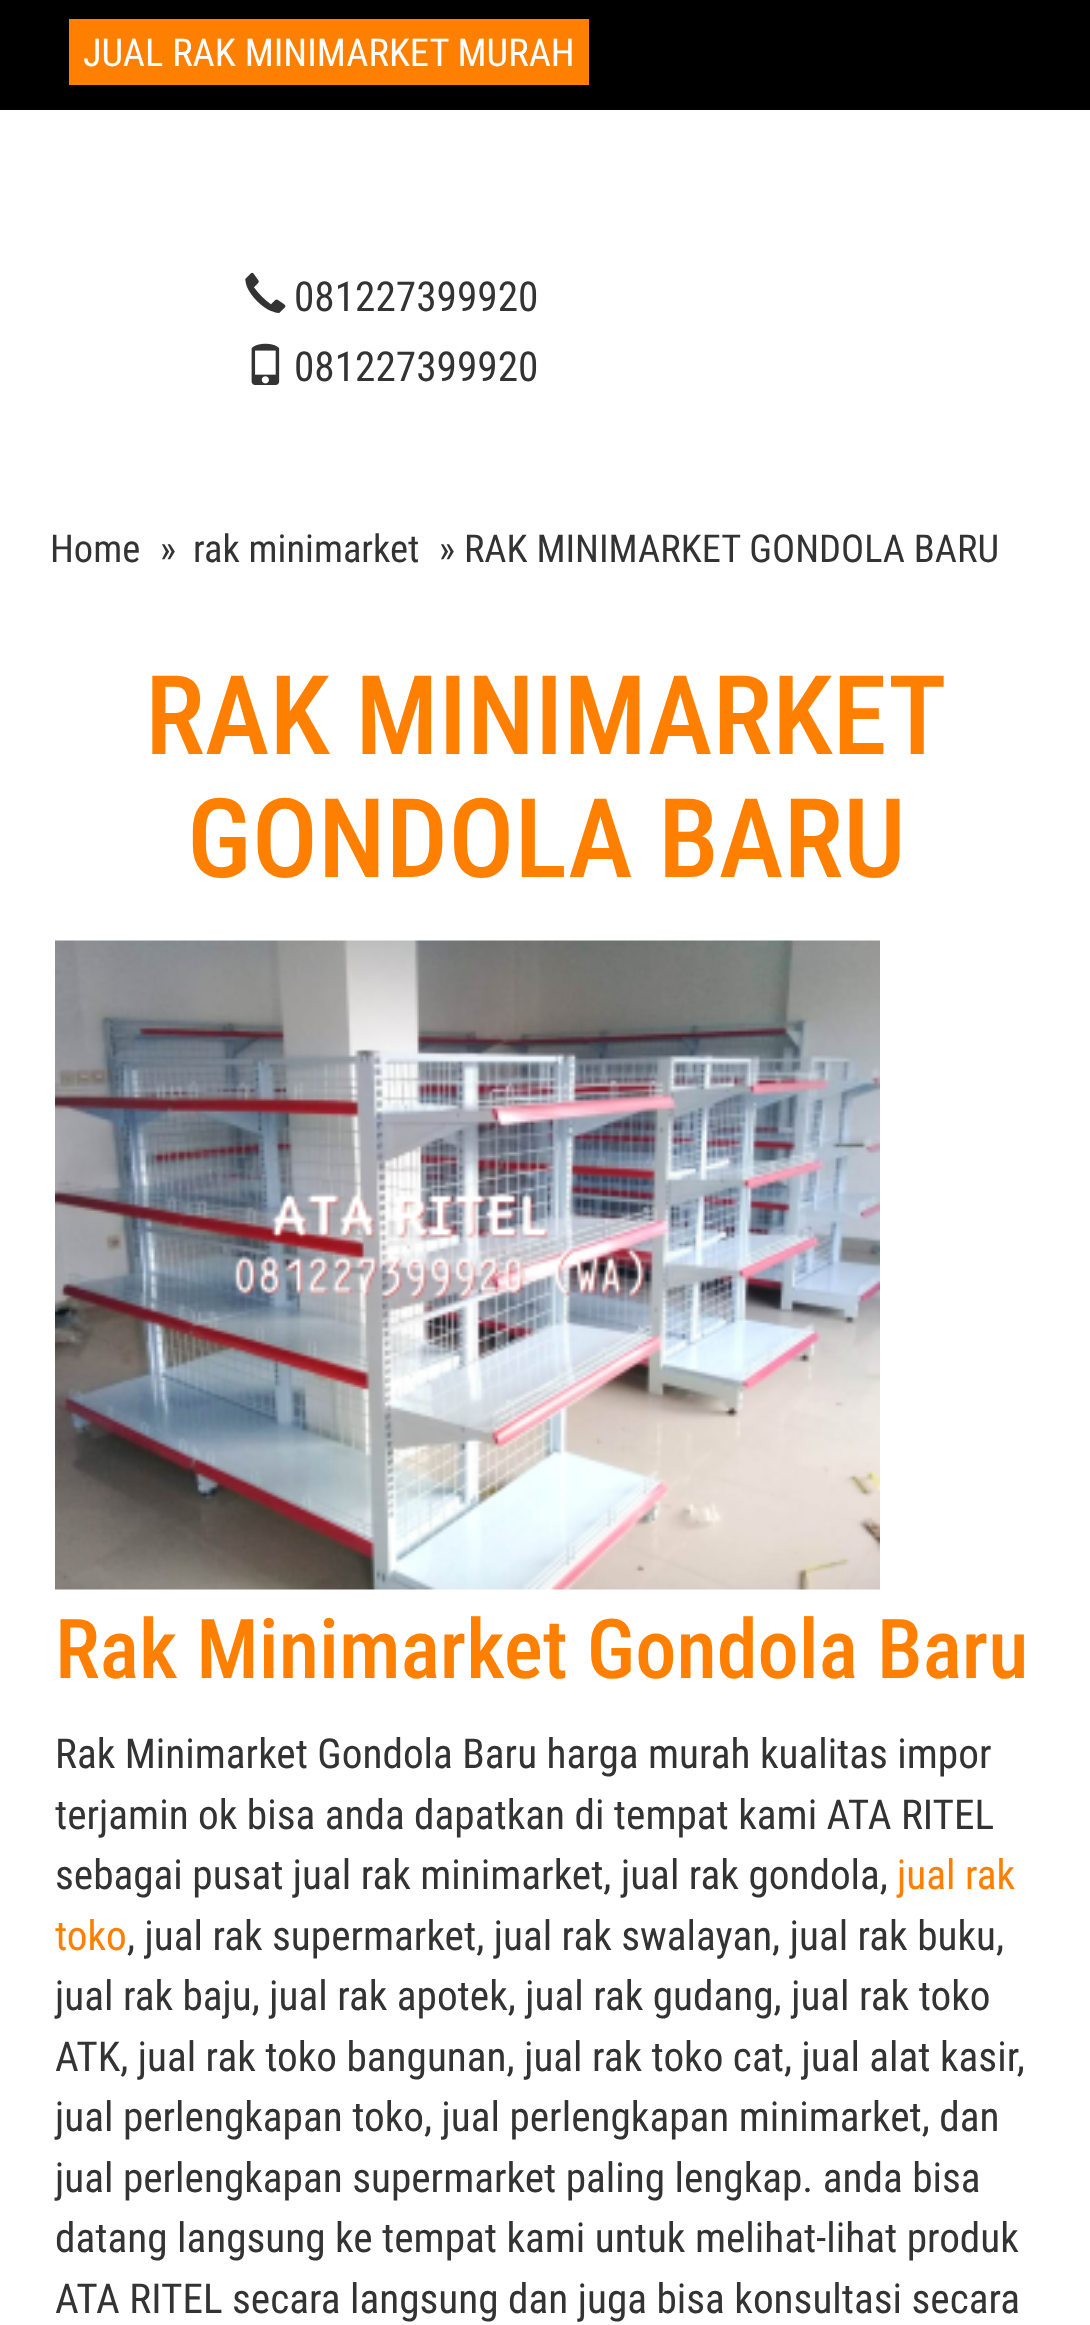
(async () => {
  const canvas = document.querySelector("canvas");
  canvas.width = 1090;
  canvas.height = 2325;
  const ctx = canvas.getContext("2d");
  ctx.miterLimit = 4;
  ctx.fontKerning = "normal";
  async function loadImage(src) {
    const img = new Image();
    img.src = src;
    await img.decode();
    return img;
  }

  ctx.fillStyle = "#ffffff";
  ctx.fillRect(0, 0, 1090, 2325);
  ctx.fillStyle = "#000000";
  ctx.fillRect(0, 0, 1090, 110);
  ctx.fillStyle = "#ff7f00";
  ctx.fillRect(69, 19, 520, 66);
  ctx.drawImage(await loadImage("img/1.png"), 245, 272, 41, 41);
  ctx.drawImage(await loadImage("img/2.png"), 251, 343, 29, 42);
  ctx.drawImage(await loadImage("img/3.png"), 55, 940, 825, 650);
  ctx.font = "38.5px Roboto Condensed";
  ctx.fillStyle = "#ffffff";
  ctx.fillText("JUAL RAK MINIMARKET MURAH", 83, 66);
  ctx.font = "41.25px Roboto Condensed";
  ctx.fillStyle = "#333333";
  ctx.fillText("081227399920", 294, 311);
  ctx.fillText("081227399920", 294, 381);
  ctx.font = "38.5px Roboto Condensed";
  for (const [text, x, y] of [
    ["Home", 50, 562],
    ["»", 160, 562],
    ["rak minimarket", 193, 562],
    ["» RAK MINIMARKET GONDOLA BARU", 439, 562],
  ]) {
    ctx.fillText(text, x, y);
  }
  ctx.font = "500 110px Roboto Condensed";
  ctx.fillStyle = "#ff7f00";
  ctx.fillText("RAK MINIMARKET", 145, 754);
  ctx.fillText("GONDOLA BARU", 187, 877);
  ctx.font = "500 82.5px Roboto Condensed";
  ctx.fillText("Rak Minimarket Gondola Baru", 55, 1678);
  ctx.font = "41.25px Roboto Condensed";
  ctx.fillStyle = "#333333";
  for (const [text, x, y] of [
    ["Rak Minimarket Gondola Baru harga murah kualitas impor", 55, 1768],
    ["terjamin ok bisa anda dapatkan di tempat kami ATA RITEL", 55, 1829],
    ["sebagai pusat jual rak minimarket, jual rak gondola,", 55, 1889],
  ]) {
    ctx.fillText(text, x, y);
  }
  ctx.fillStyle = "#ff7f00";
  ctx.fillText("jual rak", 897, 1889);
  ctx.fillText("toko", 55, 1950);
  ctx.fillStyle = "#333333";
  for (const [text, x, y] of [
    [", jual rak supermarket, jual rak swalayan, jual rak buku,", 127, 1950],
    ["jual rak baju, jual rak apotek, jual rak gudang, jual rak toko", 55, 2010],
    ["ATK, jual rak toko bangunan, jual rak toko cat, jual alat kasir,", 55, 2071],
    ["jual perlengkapan toko, jual perlengkapan minimarket, dan", 55, 2131],
    ["jual perlengkapan supermarket paling lengkap. anda bisa", 55, 2192],
    ["datang langsung ke tempat kami untuk melihat-lihat produk", 55, 2252],
    ["ATA RITEL secara langsung dan juga bisa konsultasi secara", 55, 2313],
  ]) {
    ctx.fillText(text, x, y);
  }
})();
